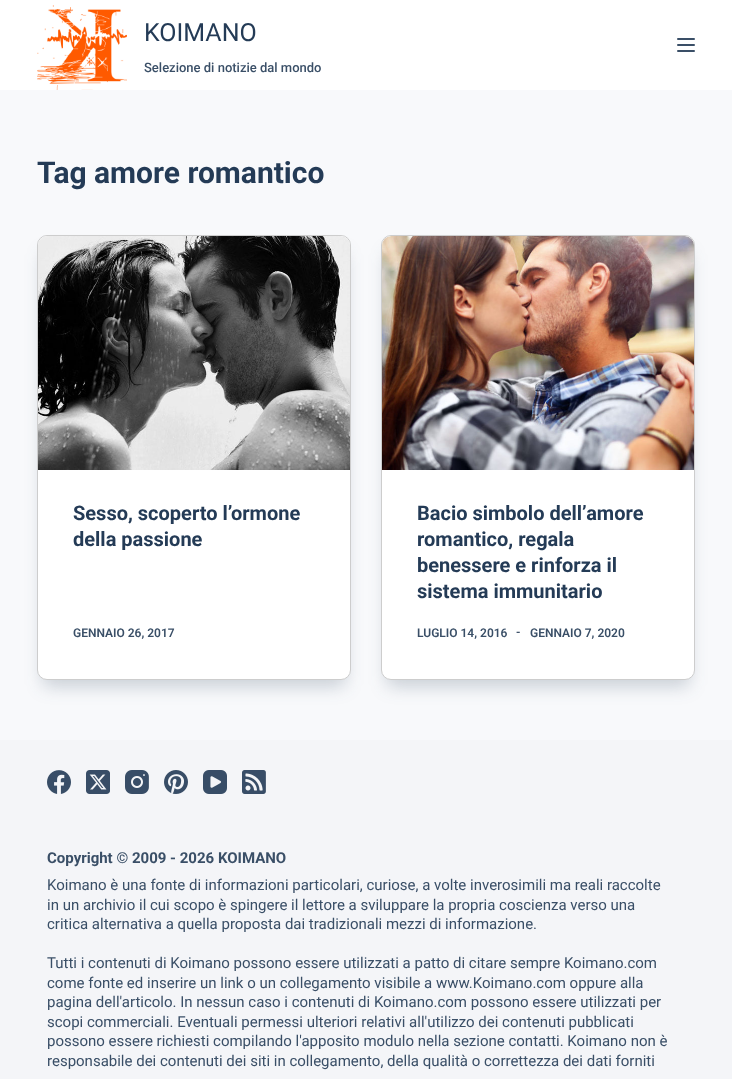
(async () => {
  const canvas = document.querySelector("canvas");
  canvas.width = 732;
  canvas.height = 1079;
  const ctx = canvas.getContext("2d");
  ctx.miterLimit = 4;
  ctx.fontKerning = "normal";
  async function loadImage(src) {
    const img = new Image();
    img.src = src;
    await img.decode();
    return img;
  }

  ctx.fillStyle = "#f8f9fb";
  ctx.fillRect(0, 0, 732, 1079);
  ctx.fillStyle = "#ffffff";
  ctx.fillRect(0, 0, 732, 90);
  ctx.drawImage(await loadImage("img/1.png"), 37, 5, 90, 85);
  ctx.fillStyle = "#3a4f67";
  ctx.beginPath();
  ctx.roundRect(677, 38, 18, 2, 1);
  ctx.fill();
  ctx.beginPath();
  ctx.roundRect(677, 44, 18, 2, 1);
  ctx.fill();
  ctx.beginPath();
  ctx.roundRect(677, 50, 18, 2, 1);
  ctx.fill();
  ctx.fillStyle = "rgba(36, 60, 86, 0.23)";
  ctx.filter = "blur(9px)";
  ctx.beginPath();
  ctx.roundRect(43, 253, 302, 433, 4);
  ctx.fill();
  ctx.filter = "none";
  ctx.fillStyle = "#ffffff";
  ctx.beginPath();
  ctx.roundRect(37.5, 235.5, 313, 444, 9.5);
  ctx.fill();
  ctx.strokeStyle = "#cdcdcd";
  ctx.stroke();
  ctx.drawImage(await loadImage("img/2.png"), 38, 236, 312, 234);
  ctx.fillStyle = "rgba(36, 60, 86, 0.23)";
  ctx.filter = "blur(9px)";
  ctx.beginPath();
  ctx.roundRect(387, 253, 302, 433, 4);
  ctx.fill();
  ctx.filter = "none";
  ctx.fillStyle = "#ffffff";
  ctx.beginPath();
  ctx.roundRect(381.5, 235.5, 313, 444, 9.5);
  ctx.fill();
  ctx.stroke();
  ctx.drawImage(await loadImage("img/3.png"), 382, 236, 312, 234);
  ctx.fillStyle = "#f4f5f8";
  ctx.fillRect(0, 740, 732, 339);
  ctx.drawImage(await loadImage("img/4.png"), 47, 770, 24, 24);
  ctx.drawImage(await loadImage("img/5.png"), 86, 770, 24, 24);
  ctx.drawImage(await loadImage("img/6.png"), 125, 770, 24, 24);
  ctx.drawImage(await loadImage("img/7.png"), 164, 770, 24, 24);
  ctx.drawImage(await loadImage("img/8.png"), 203, 770, 24, 24);
  ctx.drawImage(await loadImage("img/9.png"), 242, 770, 24, 24);
  ctx.font = "25px Roboto";
  ctx.fillStyle = "#243b56";
  ctx.fillText("KOIMANO", 144, 41);
  ctx.font = "500 13px Roboto";
  ctx.fillStyle = "#3a4f67";
  ctx.fillText("Selezione di notizie dal mondo", 144, 72);
  ctx.font = "bold 30px Roboto";
  ctx.fillStyle = "#243b56";
  ctx.fillText("Tag amore romantico", 37, 183);
  ctx.font = "bold 20px Roboto";
  ctx.fillText("Sesso, scoperto l’ormone", 73, 520);
  ctx.fillText("della passione", 73, 546);
  ctx.font = "600 12px Roboto";
  ctx.fillStyle = "#3a4f67";
  ctx.fillText("GENNAIO 26, 2017", 73, 637);
  ctx.font = "bold 20px Roboto";
  ctx.fillStyle = "#243b56";
  for (const [text, x, y] of [
    ["Bacio simbolo dell’amore", 417, 520],
    ["romantico, regala", 417, 546],
    ["benessere e rinforza il", 417, 572],
    ["sistema immunitario", 417, 598],
  ]) {
    ctx.fillText(text, x, y);
  }
  ctx.font = "600 12px Roboto";
  ctx.fillStyle = "#3a4f67";
  for (const [text, x, y] of [
    ["LUGLIO 14, 2016", 417, 637],
    ["-", 516, 636],
    ["GENNAIO 7, 2020", 530, 637],
  ]) {
    ctx.fillText(text, x, y);
  }
  ctx.font = "bold 15px Roboto";
  ctx.fillText("Copyright © 2009 - 2026 KOIMANO", 47, 863);
  ctx.font = "15px Roboto";
  for (const [text, x, y] of [
    ["Koimano è una fonte di informazioni particolari, curiose, a volte inverosimili ma reali raccolte", 47, 890],
    ["in un archivio il cui scopo è spingere il lettore a sviluppare la propria coscienza verso una", 47, 910],
    ["critica alternativa a quella proposta dai tradizionali mezzi di informazione.", 47, 929],
    ["Tutti i contenuti di Koimano possono essere utilizzati a patto di citare sempre Koimano.com", 47, 968],
    ["come fonte ed inserire un link o un collegamento visibile a www.Koimano.com oppure alla", 47, 988],
    ["pagina dell'articolo. In nessun caso i contenuti di Koimano.com possono essere utilizzati per", 47, 1007],
    ["scopi commerciali. Eventuali permessi ulteriori relativi all'utilizzo dei contenuti pubblicati", 47, 1027],
    ["possono essere richiesti compilando l'apposito modulo nella sezione contatti. Koimano non è", 47, 1046],
    ["responsabile dei contenuti dei siti in collegamento, della qualità o correttezza dei dati forniti", 47, 1066],
  ]) {
    ctx.fillText(text, x, y);
  }
})();
